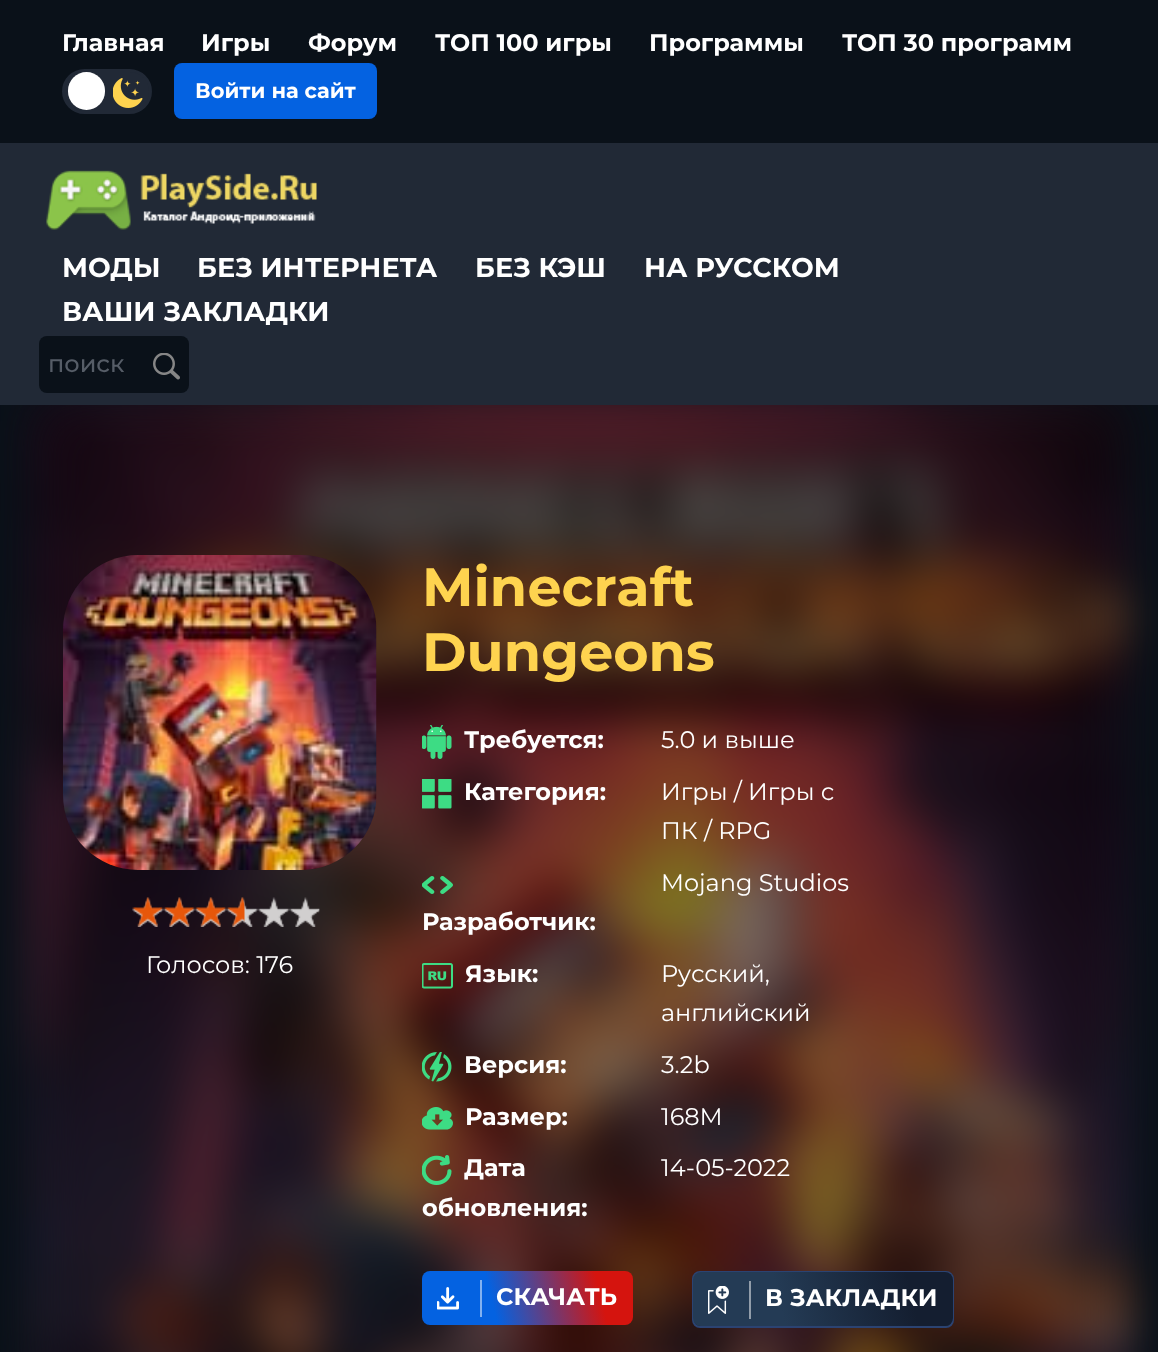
(async () => {
  const canvas = document.querySelector("canvas");
  canvas.width = 1158;
  canvas.height = 1352;
  const ctx = canvas.getContext("2d");
  ctx.miterLimit = 4;
  ctx.fontKerning = "normal";
  async function loadImage(src) {
    const img = new Image();
    img.src = src;
    await img.decode();
    return img;
  }
  let gradient;

  ctx.fillStyle = "#0a1119";
  ctx.fillRect(0, 0, 1158, 1352);
  ctx.fillStyle = "#212936";
  ctx.beginPath();
  ctx.roundRect(63.5, 70.5, 87, 42, 21);
  ctx.fill();
  ctx.strokeStyle = "#212936";
  ctx.lineWidth = 3;
  ctx.stroke();
  ctx.fillStyle = "#ffffff";
  ctx.beginPath();
  ctx.roundRect(68, 72, 37, 38, 18.5);
  ctx.fill();
  ctx.drawImage(await loadImage("img/1.png"), 113, 78, 30, 30);
  ctx.fillStyle = "#0462e1";
  ctx.beginPath();
  ctx.roundRect(174, 63, 203, 56, 8);
  ctx.fill();
  ctx.drawImage(await loadImage("img/4.png"), 0, 405, 1158, 947);
  ctx.fillStyle = "rgba(0, 0, 0, 0.5)";
  ctx.filter = "blur(24px)";
  ctx.beginPath();
  ctx.rect(39, 405, 1080, 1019);
  ctx.fill();
  ctx.filter = "none";
  ctx.fillStyle = "#212936";
  ctx.fillRect(0, 143, 1158, 262);
  ctx.drawImage(await loadImage("img/2.png"), 46, 170, 271, 60);
  ctx.fillStyle = "#0a1119";
  ctx.beginPath();
  ctx.roundRect(39, 336, 150, 57, 8);
  ctx.fill();
  ctx.drawImage(await loadImage("img/3.png"), 153, 353, 27, 27);
  ctx.drawImage(await loadImage("img/5.png"), 63, 555, 314, 315);
  ctx.drawImage(await loadImage("img/6.png"), 132, 897, 188, 30);
  ctx.drawImage(await loadImage("img/7.png"), 132, 897, 113, 30);
  ctx.drawImage(await loadImage("img/8.png"), 422, 725, 30, 34);
  ctx.drawImage(await loadImage("img/9.png"), 422, 779, 30, 30);
  ctx.drawImage(await loadImage("img/10.png"), 422, 876, 31, 18);
  ctx.drawImage(await loadImage("img/11.png"), 422, 963, 31, 26);
  ctx.drawImage(await loadImage("img/12.png"), 422, 1052, 30, 30);
  ctx.drawImage(await loadImage("img/13.png"), 422, 1107, 31, 23);
  ctx.drawImage(await loadImage("img/14.png"), 422, 1155, 30, 30);
  gradient = ctx.createLinearGradient(633, 1271, 421, 1324);
  gradient.addColorStop(0.17, "#d5140e");
  gradient.addColorStop(0.66, "#0462e1");
  ctx.fillStyle = gradient;
  ctx.beginPath();
  ctx.roundRect(422, 1271, 211, 54, 8);
  ctx.fill();
  ctx.drawImage(await loadImage("img/15.png"), 437, 1287, 22, 23);
  ctx.fillStyle = "#82b1f0";
  ctx.fillRect(480, 1280, 2, 37);
  ctx.fillStyle = "#212936";
  ctx.beginPath();
  ctx.roundRect(693, 1272, 260, 55, 7);
  ctx.fill();
  ctx.strokeStyle = "#2b4372";
  ctx.lineWidth = 2;
  ctx.stroke();
  gradient = ctx.createLinearGradient(951, 1267, 694, 1331);
  gradient.addColorStop(0.17, "#141e30");
  gradient.addColorStop(0.66, "#243b55");
  ctx.fillStyle = gradient;
  ctx.beginPath();
  ctx.roundRect(693, 1272, 260, 54, 8);
  ctx.fill();
  ctx.drawImage(await loadImage("img/16.png"), 708, 1286, 21, 28);
  ctx.fillStyle = "#929daa";
  ctx.fillRect(749, 1281, 2, 38);
  ctx.font = "bold 24px Montserrat";
  ctx.fillStyle = "#ffffff";
  for (const [text, x, y] of [
    ["Главная", 62, 51],
    ["Игры", 201, 51],
    ["Форум", 308, 51],
    ["ТОП 100 игры", 435, 51],
    ["Программы", 649, 51],
    ["ТОП 30 программ", 842, 51],
  ]) {
    ctx.fillText(text, x, y);
  }
  ctx.font = "bold 21px Montserrat";
  ctx.fillText("Войти на сайт", 195, 98);
  ctx.font = "bold 27px Montserrat";
  for (const [text, x, y] of [
    ["МОДЫ", 62, 277],
    ["БЕЗ ИНТЕРНЕТА", 197, 277],
    ["БЕЗ КЭШ", 475, 277],
    ["НА РУССКОМ", 644, 277],
    ["ВАШИ ЗАКЛАДКИ", 62, 321],
  ]) {
    ctx.fillText(text, x, y);
  }
  ctx.font = "500 24px Montserrat";
  ctx.fillStyle = "#565d67";
  ctx.fillText("поиск", 48, 372);
  ctx.font = "24px Montserrat";
  ctx.fillStyle = "#ffffff";
  ctx.fillText("Голосов: 176", 146, 973);
  ctx.font = "bold 54px Montserrat";
  ctx.fillStyle = "#fed34f";
  ctx.fillText("Minecraft", 422, 606);
  ctx.fillText("Dungeons", 422, 671);
  ctx.font = "bold 24px Montserrat";
  ctx.fillStyle = "#ffffff";
  ctx.fillText("Требуется:", 464, 748);
  ctx.font = "24px Montserrat";
  ctx.fillText("5.0 и выше", 661, 748);
  ctx.font = "bold 24px Montserrat";
  ctx.fillText("Категория:", 464, 800);
  ctx.font = "24px Montserrat";
  for (const [text, x, y] of [
    ["Игры / Игры с", 661, 800],
    ["ПК / RPG", 661, 839],
    ["Mojang Studios", 661, 891],
  ]) {
    ctx.fillText(text, x, y);
  }
  ctx.font = "bold 24px Montserrat";
  ctx.fillText("Разработчик:", 422, 930);
  ctx.fillText("Язык:", 465, 982);
  ctx.font = "24px Montserrat";
  ctx.fillText("Русский,", 661, 982);
  ctx.fillText("английский", 661, 1021);
  ctx.font = "bold 24px Montserrat";
  ctx.fillText("Версия:", 464, 1073);
  ctx.font = "24px Montserrat";
  ctx.fillText("3.2b", 661, 1073);
  ctx.font = "bold 24px Montserrat";
  ctx.fillText("Размер:", 465, 1125);
  ctx.font = "24px Montserrat";
  ctx.fillText("168М", 661, 1125);
  ctx.font = "bold 24px Montserrat";
  ctx.fillText("Дата", 464, 1176);
  ctx.fillText("обновления:", 422, 1216);
  ctx.font = "24px Montserrat";
  ctx.fillText("14-05-2022", 661, 1176);
  ctx.font = "bold 24px Montserrat";
  ctx.fillText("СКАЧАТЬ", 496, 1305);
  ctx.fillText("В ЗАКЛАДКИ", 765, 1306);
})();
